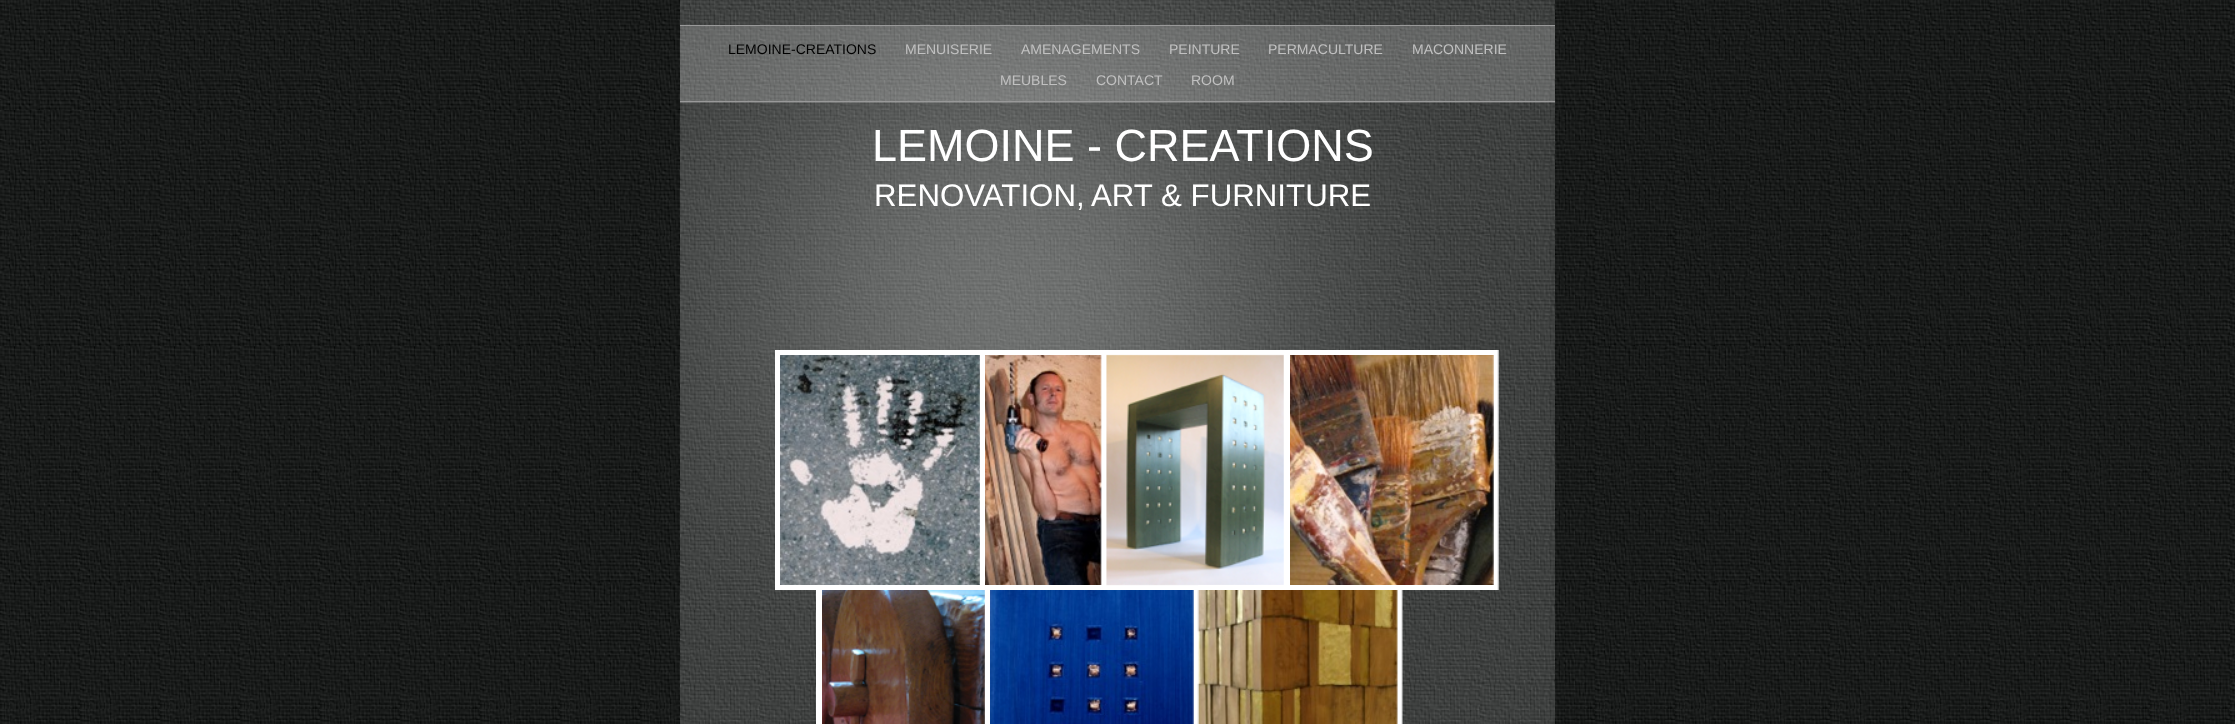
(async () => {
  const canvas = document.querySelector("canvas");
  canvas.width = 2235;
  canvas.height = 724;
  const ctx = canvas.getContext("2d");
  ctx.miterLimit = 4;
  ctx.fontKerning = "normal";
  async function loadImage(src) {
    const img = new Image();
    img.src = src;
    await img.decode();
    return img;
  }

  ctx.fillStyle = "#ffffff";
  ctx.fillRect(0, 0, 2235, 724);
  ctx.drawImage(await loadImage("img/1.png"), 0, 0, 2235, 724);
  ctx.drawImage(await loadImage("img/2.png"), 680, 0, 875, 724);
  for (const [x, y, w, h, color] of [
    [680, 26, 875, 77, "rgba(255, 255, 255, 0.2)"],
    [680, 25, 875, 1, "#999999"],
    [680, 101, 875, 1, "#999999"],
    [775, 350, 5, 235, "#ffffff"],
    [780, 350, 199, 5, "#ffffff"],
  ]) {
    ctx.fillStyle = color;
    ctx.fillRect(x, y, w, h);
  }
  ctx.drawImage(await loadImage("img/3.png"), 979, 350, 3, 5);
  ctx.drawImage(await loadImage("img/4.png"), 780, 355, 200, 230);
  ctx.drawImage(await loadImage("img/5.png"), 978, 355, 2, 230);
  for (const [x, y, w, h, color] of [
    [775, 585, 203, 5, "#ffffff"],
    [978, 585, 6, 5, "#ffffff"],
    [982, 350, 122, 5, "#ffffff"],
    [980, 355, 5, 230, "#ffffff"],
  ]) {
    ctx.fillStyle = color;
    ctx.fillRect(x, y, w, h);
  }
  ctx.drawImage(await loadImage("img/6.png"), 985, 355, 117, 230);
  ctx.drawImage(await loadImage("img/8.png"), 1104, 350, 183, 237);
  ctx.drawImage(await loadImage("img/7.png"), 1100, 355, 7, 230);
  for (const [x, y, w, h, color] of [
    [982, 585, 3, 3, "#ffffff"],
    [985, 585, 119, 5, "#ffffff"],
    [1287, 350, 3, 235, "#ffffff"],
    [1290, 350, 203, 5, "#ffffff"],
  ]) {
    ctx.fillStyle = color;
    ctx.fillRect(x, y, w, h);
  }
  ctx.drawImage(await loadImage("img/9.png"), 1493, 350, 6, 5);
  ctx.drawImage(await loadImage("img/10.png"), 1290, 355, 204, 230);
  ctx.drawImage(await loadImage("img/11.png"), 1492, 355, 7, 230);
  ctx.drawImage(await loadImage("img/12.png"), 1493, 585, 6, 5);
  ctx.drawImage(await loadImage("img/13.png"), 984, 588, 1, 2);
  ctx.fillRect(816, 590, 6, 134);
  ctx.drawImage(await loadImage("img/14.png"), 822, 590, 163, 134);
  ctx.drawImage(await loadImage("img/15.png"), 983, 590, 2, 134);
  for (const [x, y, w, h, color] of [
    [1195, 587, 3, 3, "#ffffff"],
    [1104, 587, 93, 3, "#ffffff"],
    [985, 590, 5, 134, "#ffffff"],
  ]) {
    ctx.fillStyle = color;
    ctx.fillRect(x, y, w, h);
  }
  ctx.drawImage(await loadImage("img/16.png"), 990, 590, 204, 134);
  ctx.drawImage(await loadImage("img/18.png"), 1197, 590, 201, 134);
  ctx.drawImage(await loadImage("img/17.png"), 1192, 590, 7, 134);
  ctx.fillRect(1198, 585, 295, 5);
  ctx.drawImage(await loadImage("img/19.png"), 1396, 590, 7, 134);
  ctx.font = "14px Liberation Sans";
  ctx.fillStyle = "#000000";
  ctx.fillText("LEMOINE-CREATIONS", 728, 54);
  ctx.fillStyle = "#c1c1c1";
  for (const [text, x, y] of [
    ["MENUISERIE", 905, 54],
    ["AMENAGEMENTS", 1021, 54],
    ["PEINTURE", 1169, 54],
    ["PERMACULTURE", 1268, 54],
    ["MACONNERIE", 1412, 54],
    ["MEUBLES", 1000, 85],
    ["CONTACT", 1096, 85],
    ["ROOM", 1191, 85],
  ]) {
    ctx.fillText(text, x, y);
  }
  ctx.font = "45px Liberation Sans";
  ctx.fillStyle = "#ffffff";
  ctx.fillText("LEMOINE - CREATIONS", 872, 161);
  ctx.font = "31.25px Liberation Sans";
  ctx.fillText("RENOVATION,", 874, 206);
  ctx.fillText("ART & FURNITURE", 1091, 206);
})();
